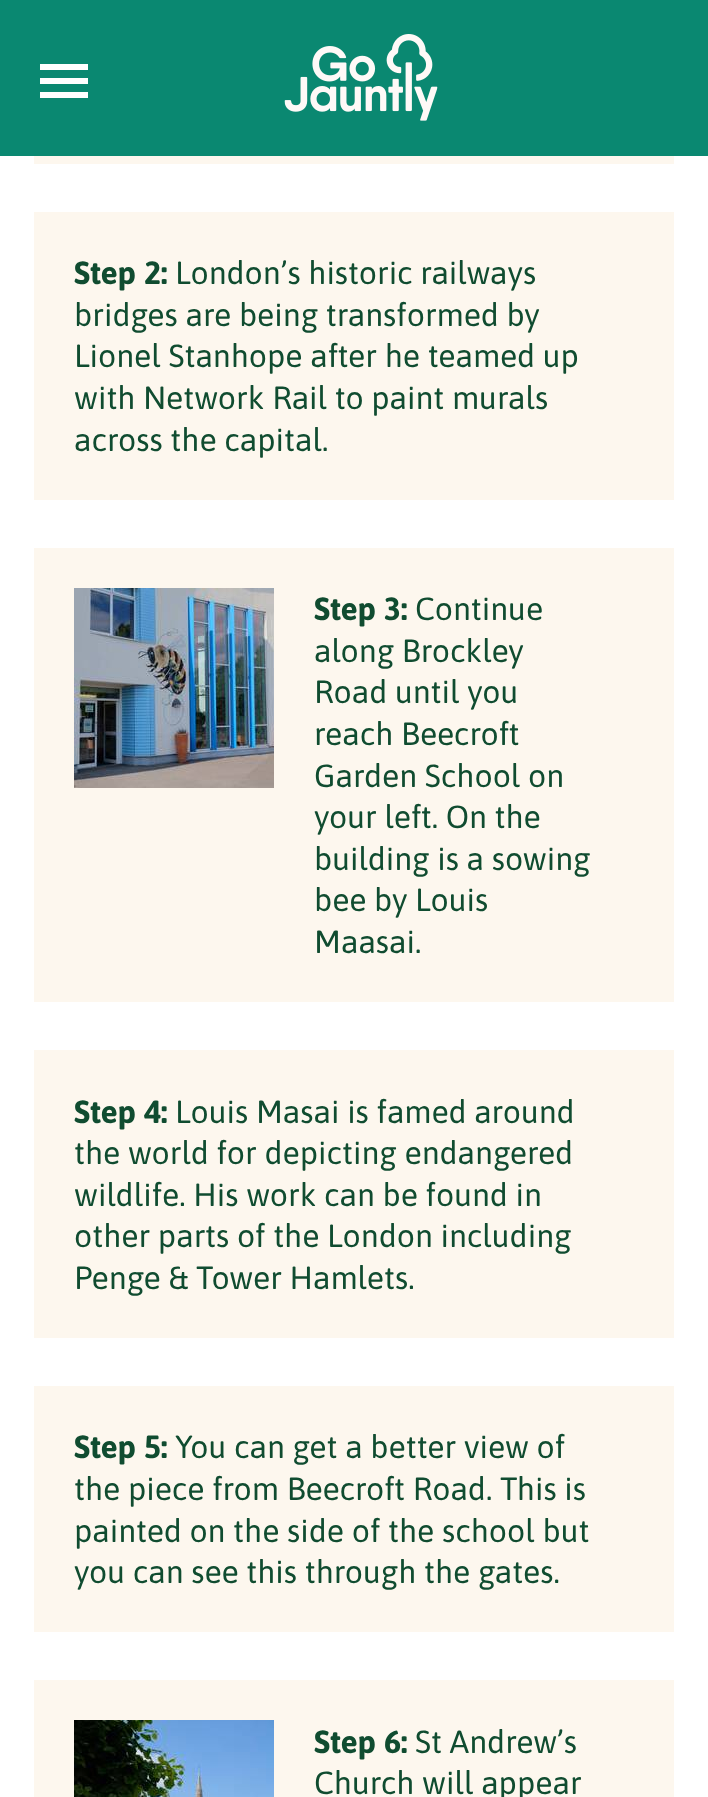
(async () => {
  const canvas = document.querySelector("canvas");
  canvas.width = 708;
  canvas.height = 1797;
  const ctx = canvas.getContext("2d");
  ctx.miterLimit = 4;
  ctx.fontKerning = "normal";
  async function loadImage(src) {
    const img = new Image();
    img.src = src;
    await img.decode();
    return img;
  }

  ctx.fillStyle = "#ffffff";
  ctx.fillRect(0, 0, 708, 1797);
  for (const [x, y, w, h, color] of [
    [0, 0, 708, 156, "#0a8871"],
    [40, 64, 48, 6, "#ffffff"],
    [40, 78, 48, 6, "#ffffff"],
    [40, 92, 48, 6, "#ffffff"],
  ]) {
    ctx.fillStyle = color;
    ctx.fillRect(x, y, w, h);
  }
  ctx.drawImage(await loadImage("img/1.png"), 284, 34, 154, 87);
  for (const [x, y, w, h, color] of [
    [34, 156, 640, 8, "#fdf7ee"],
    [34, 212, 640, 288, "#fdf7ee"],
    [34, 548, 640, 454, "#fdf7ee"],
  ]) {
    ctx.fillStyle = color;
    ctx.fillRect(x, y, w, h);
  }
  ctx.drawImage(await loadImage("img/2.png"), 74, 588, 200, 200);
  for (const [x, y, w, h, color] of [
    [34, 1050, 640, 288, "#fdf7ee"],
    [34, 1386, 640, 246, "#fdf7ee"],
    [34, 1680, 640, 117, "#fdf7ee"],
  ]) {
    ctx.fillStyle = color;
    ctx.fillRect(x, y, w, h);
  }
  ctx.drawImage(await loadImage("img/3.png"), 74, 1720, 200, 77);
  ctx.font = "bold 32px Asap";
  ctx.fillStyle = "#104c30";
  ctx.fillText("Step 2:", 74, 284);
  ctx.font = "32px Asap";
  for (const [text, x, y] of [
    ["London’s historic railways", 175, 284],
    ["bridges are being transformed by", 74, 326],
    ["Lionel Stanhope after he teamed up", 74, 367],
    ["with Network Rail to paint murals", 74, 409],
    ["across the capital.", 74, 451],
  ]) {
    ctx.fillText(text, x, y);
  }
  ctx.font = "bold 32px Asap";
  ctx.fillText("Step 3:", 314, 620);
  ctx.font = "32px Asap";
  for (const [text, x, y] of [
    ["Continue", 415, 620],
    ["along Brockley", 314, 662],
    ["Road until you", 314, 703],
    ["reach Beecroft", 314, 745],
    ["Garden School on", 314, 787],
    ["your left. On the", 314, 828],
    ["building is a sowing", 314, 870],
    ["bee by Louis", 314, 911],
    ["Maasai.", 314, 953],
  ]) {
    ctx.fillText(text, x, y);
  }
  ctx.font = "bold 32px Asap";
  ctx.fillText("Step 4:", 74, 1123);
  ctx.font = "32px Asap";
  for (const [text, x, y] of [
    ["Louis Masai is famed around", 175, 1123],
    ["the world for depicting endangered", 74, 1164],
    ["wildlife. His work can be found in", 74, 1206],
    ["other parts of the London including", 74, 1247],
    ["Penge & Tower Hamlets.", 74, 1289],
  ]) {
    ctx.fillText(text, x, y);
  }
  ctx.font = "bold 32px Asap";
  ctx.fillText("Step 5:", 74, 1458);
  ctx.font = "32px Asap";
  for (const [text, x, y] of [
    ["You can get a better view of", 175, 1458],
    ["the piece from Beecroft Road. This is", 74, 1500],
    ["painted on the side of the school but", 74, 1542],
    ["you can see this through the gates.", 74, 1583],
  ]) {
    ctx.fillText(text, x, y);
  }
  ctx.font = "bold 32px Asap";
  ctx.fillText("Step 6:", 314, 1753);
  ctx.font = "32px Asap";
  ctx.fillText("St Andrew’s", 415, 1753);
  ctx.fillText("Church will appear", 314, 1794);
})();
